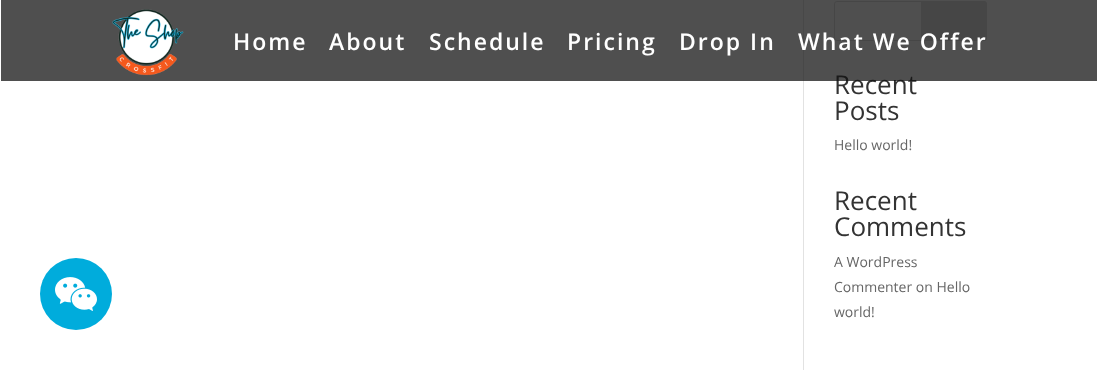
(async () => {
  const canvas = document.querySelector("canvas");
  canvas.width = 1097;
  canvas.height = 370;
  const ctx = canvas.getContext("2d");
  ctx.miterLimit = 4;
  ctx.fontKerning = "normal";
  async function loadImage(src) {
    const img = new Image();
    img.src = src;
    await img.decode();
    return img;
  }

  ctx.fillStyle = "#ffffff";
  ctx.fillRect(0, 0, 1097, 370);
  ctx.fillStyle = "#00acdc";
  ctx.beginPath();
  ctx.arc(76, 294, 36, 0, Math.PI * 2);
  ctx.fill();
  ctx.drawImage(await loadImage("img/1.png"), 55, 277, 42, 34);
  ctx.fillStyle = "#e2e2e2";
  ctx.fillRect(803, 0, 1, 370);
  ctx.beginPath();
  ctx.roundRect(834.5, 1.5, 152, 39, 2.5);
  ctx.strokeStyle = "#dddddd";
  ctx.stroke();
  ctx.fillStyle = "#dddddd";
  ctx.beginPath();
  ctx.roundRect(921.5, 1.5, 65, 39, [0, 2.5, 2.5, 0]);
  ctx.fill();
  ctx.stroke();
  ctx.font = "26px Open Sans";
  ctx.fillStyle = "#333333";
  ctx.fillText("Recent", 834, 94);
  ctx.fillStyle = "rgba(17, 17, 17, 0.74)";
  ctx.fillRect(1, 0, 1096, 81);
  ctx.letterSpacing = "2px";
  ctx.font = "600 23px Open Sans";
  ctx.fillStyle = "#ffffff";
  for (const [text, x, y] of [
    ["What We Offer", 798, 50],
    ["Drop In", 679, 50],
    ["Pricing", 567, 50],
    ["Schedule", 429, 50],
    ["About", 329, 50],
    ["Home", 233, 50],
  ]) {
    ctx.fillText(text, x, y);
  }
  ctx.drawImage(await loadImage("img/2.png"), 112, 9, 72, 67);
  ctx.letterSpacing = "0px";
  ctx.font = "26px Open Sans";
  ctx.fillStyle = "#333333";
  ctx.fillText("Posts", 834, 120);
  ctx.font = "14px Open Sans";
  ctx.fillStyle = "#666666";
  ctx.fillText("Hello world!", 834, 150);
  ctx.font = "26px Open Sans";
  ctx.fillStyle = "#333333";
  ctx.fillText("Recent", 834, 210);
  ctx.fillText("Comments", 834, 236);
  ctx.font = "14px Open Sans";
  ctx.fillStyle = "#666666";
  for (const [text, x, y] of [
    ["A WordPress", 834, 267],
    ["Commenter on Hello", 834, 292],
    ["world!", 834, 317],
  ]) {
    ctx.fillText(text, x, y);
  }
})();
